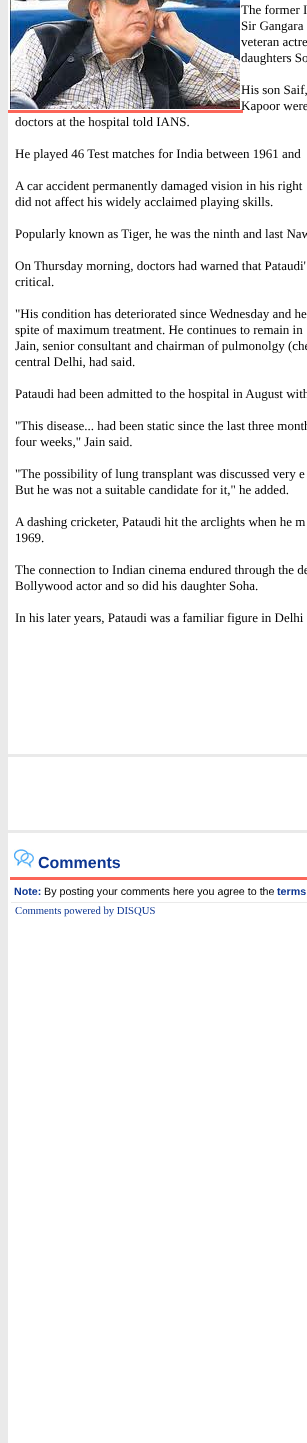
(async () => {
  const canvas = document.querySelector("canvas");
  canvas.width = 307;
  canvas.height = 1443;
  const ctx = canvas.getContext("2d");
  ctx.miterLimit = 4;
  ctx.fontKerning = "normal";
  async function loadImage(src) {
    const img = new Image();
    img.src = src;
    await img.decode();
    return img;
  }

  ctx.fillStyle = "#eaeaea";
  ctx.fillRect(0, 0, 307, 1443);
  ctx.fillStyle = "#ffffff";
  ctx.fillRect(8, 0, 299, 1443);
  ctx.fillStyle = "#fc6558";
  ctx.fillRect(8, 110, 235, 3);
  ctx.drawImage(await loadImage("img/1.png"), 10, 0, 230, 109);
  for (const [x, y, w, h, color] of [
    [8, 754, 299, 3, "#eaeaea"],
    [8, 830, 299, 3, "#eaeaea"],
    [10, 877, 297, 3, "#fc6558"],
  ]) {
    ctx.fillStyle = color;
    ctx.fillRect(x, y, w, h);
  }
  ctx.drawImage(await loadImage("img/2.png"), 14, 849, 20, 19);
  ctx.fillStyle = "#eaeaea";
  ctx.fillRect(11, 902, 296, 1);
  ctx.font = "13px Liberation Serif";
  ctx.fillStyle = "#000000";
  for (const [text, x, y] of [
    ["The former I", 241, 14],
    ["Sir Gangara", 241, 30],
    ["veteran actre", 241, 46],
    ["daughters So", 241, 62],
    ["His son Saif,", 241, 94],
    ["Kapoor were", 241, 110],
    ["doctors at the hospital told IANS.", 15, 126],
    ["He played 46 Test matches for India between 1961 and", 15, 158],
    ["A car accident permanently damaged vision in his right", 15, 190],
    ["did not affect his widely acclaimed playing skills.", 15, 206],
    ["Popularly known as Tiger, he was the ninth and last Naw", 15, 238],
    ["On Thursday morning, doctors had warned that Pataudi'", 15, 270],
    ["critical.", 15, 286],
    ["\"His condition has deteriorated since Wednesday and he", 15, 318],
    ["spite of maximum treatment. He continues to remain in", 15, 334],
    ["Jain, senior consultant and chairman of pulmonolgy (che", 15, 350],
    ["central Delhi, had said.", 15, 366],
    ["Pataudi had been admitted to the hospital in August with", 15, 398],
    ["\"This disease... had been static since the last three month", 15, 430],
    ["four weeks,\" Jain said.", 15, 446],
    ["\"The possibility of lung transplant was discussed very e", 15, 478],
    ["But he was not a suitable candidate for it,\" he added.", 15, 494],
    ["A dashing cricketer, Pataudi hit the arclights when he m", 15, 526],
    ["1969.", 15, 542],
    ["The connection to Indian cinema endured through the de", 15, 574],
    ["Bollywood actor and so did his daughter Soha.", 15, 590],
    ["In his later years, Pataudi was a familiar figure in Delhi", 15, 622],
  ]) {
    ctx.fillText(text, x, y);
  }
  ctx.font = "bold 16px Liberation Sans";
  ctx.fillStyle = "#0d3692";
  ctx.fillText("Comments", 38, 868);
  ctx.font = "bold 10.7px Liberation Sans";
  ctx.fillText("Note:", 14, 895);
  ctx.font = "10.7px Liberation Sans";
  ctx.fillStyle = "#000000";
  ctx.fillText("By posting your comments here you agree to the", 44, 895);
  ctx.font = "bold 10.7px Liberation Sans";
  ctx.fillStyle = "#0d3692";
  ctx.fillText("terms", 277, 895);
  ctx.font = "10.7px Liberation Serif";
  ctx.fillText("Comments powered by DISQUS", 15, 914);
})();
